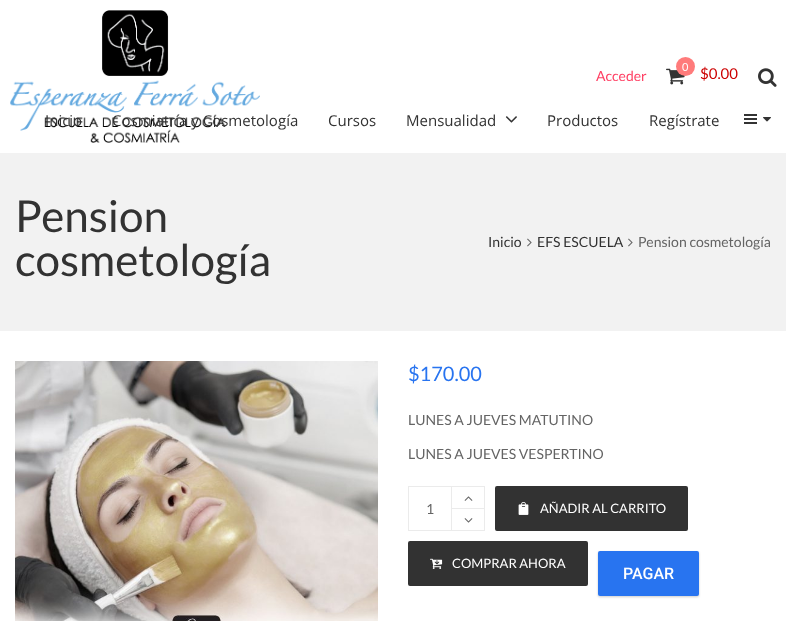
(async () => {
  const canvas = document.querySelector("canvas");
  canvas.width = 786;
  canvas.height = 621;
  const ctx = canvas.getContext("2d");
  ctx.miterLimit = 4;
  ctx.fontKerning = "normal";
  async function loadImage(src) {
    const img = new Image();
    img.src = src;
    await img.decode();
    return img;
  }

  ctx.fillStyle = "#ffffff";
  ctx.fillRect(0, 0, 786, 621);
  ctx.drawImage(await loadImage("img/1.png"), 10, 10, 250, 133);
  ctx.drawImage(await loadImage("img/2.png"), 666, 68, 19, 17);
  ctx.fillStyle = "#ff7b7b";
  ctx.beginPath();
  ctx.arc(685.5, 66.5, 9.5, 0, Math.PI * 2);
  ctx.fill();
  ctx.drawImage(await loadImage("img/3.png"), 758, 68, 19, 19);
  ctx.drawImage(await loadImage("img/4.png"), 505, 116, 12, 7);
  for (const [x, y, w, h, color] of [
    [744, 114, 13, 2, "#333333"],
    [744, 118, 13, 2, "#333333"],
    [744, 122, 13, 2, "#333333"],
  ]) {
    ctx.fillStyle = color;
    ctx.fillRect(x, y, w, h);
  }
  ctx.drawImage(await loadImage("img/5.png"), 763, 117, 8, 5);
  ctx.fillStyle = "#f2f2f2";
  ctx.fillRect(0, 153, 786, 178);
  ctx.drawImage(await loadImage("img/6.png"), 527, 238, 5, 9);
  ctx.drawImage(await loadImage("img/6.png"), 628, 238, 5, 9);
  ctx.drawImage(await loadImage("img/7.png"), 15, 361, 363, 260);
  ctx.strokeStyle = "#ebebeb";
  ctx.strokeRect(408.5, 486.5, 76, 44);
  ctx.fillStyle = "#ebebeb";
  ctx.fillRect(451, 487, 1, 43);
  ctx.fillRect(452, 508, 32, 1);
  ctx.drawImage(await loadImage("img/8.png"), 464, 496, 9, 5);
  ctx.drawImage(await loadImage("img/9.png"), 464, 518, 9, 5);
  ctx.fillStyle = "#323232";
  ctx.beginPath();
  ctx.roundRect(496, 487, 191, 43, 1);
  ctx.fill();
  ctx.strokeStyle = "#323232";
  ctx.lineWidth = 2;
  ctx.stroke();
  ctx.drawImage(await loadImage("img/10.png"), 518, 502, 11, 13);
  ctx.beginPath();
  ctx.roundRect(409, 542, 178, 43, 1);
  ctx.fill();
  ctx.stroke();
  ctx.drawImage(await loadImage("img/11.png"), 430, 558, 13, 11);
  ctx.fillStyle = "rgba(0, 0, 0, 0.2)";
  ctx.filter = "blur(1px)";
  ctx.beginPath();
  ctx.roundRect(598, 552, 101, 45, 2);
  ctx.fill();
  ctx.filter = "none";
  ctx.fillStyle = "#2874f0";
  ctx.beginPath();
  ctx.roundRect(598, 551, 101, 45, 2);
  ctx.fill();
  ctx.font = "14px Lato";
  ctx.fillStyle = "#ff4064";
  ctx.fillText("Acceder", 596, 81);
  ctx.font = "11px Lato";
  ctx.fillStyle = "#ffffff";
  ctx.fillText("0", 682, 71);
  ctx.font = "15px Lato";
  ctx.fillStyle = "#cc0000";
  ctx.fillText("$0.00", 700, 79);
  ctx.font = "15px Open Sans";
  ctx.fillStyle = "#323232";
  for (const [text, x, y] of [
    ["Inicio", 45, 126],
    ["Cosmiatría y Cosmetología", 112, 126],
    ["Cursos", 328, 126],
    ["Mensualidad", 406, 126],
    ["Productos", 547, 126],
    ["Regístrate", 649, 126],
  ]) {
    ctx.fillText(text, x, y);
  }
  ctx.font = "44px Lato";
  ctx.fillText("Pension", 15, 232);
  ctx.fillText("cosmetología", 15, 276);
  ctx.font = "14px Lato";
  ctx.fillText("Inicio", 488, 247);
  ctx.fillText("EFS ESCUELA", 537, 247);
  ctx.fillStyle = "#646464";
  ctx.fillText("Pension cosmetología", 638, 247);
  ctx.font = "20px Lato";
  ctx.fillStyle = "#2874f0";
  ctx.fillText("$170.00", 408, 381);
  ctx.font = "14px Lato";
  ctx.fillStyle = "#646464";
  for (const [text, x, y] of [
    ["LUNES A JUEVES MATUTINO", 408, 425],
    ["LUNES A JUEVES VESPERTINO", 408, 459],
    ["1", 426, 514],
  ]) {
    ctx.fillText(text, x, y);
  }
  ctx.font = "13px Lato";
  ctx.fillStyle = "#ffffff";
  ctx.fillText("AÑADIR AL CARRITO", 540, 513);
  ctx.fillText("COMPRAR AHORA", 452, 568);
  ctx.font = "500 16px Roboto";
  ctx.fillText("PAGAR", 623, 579);
})();
